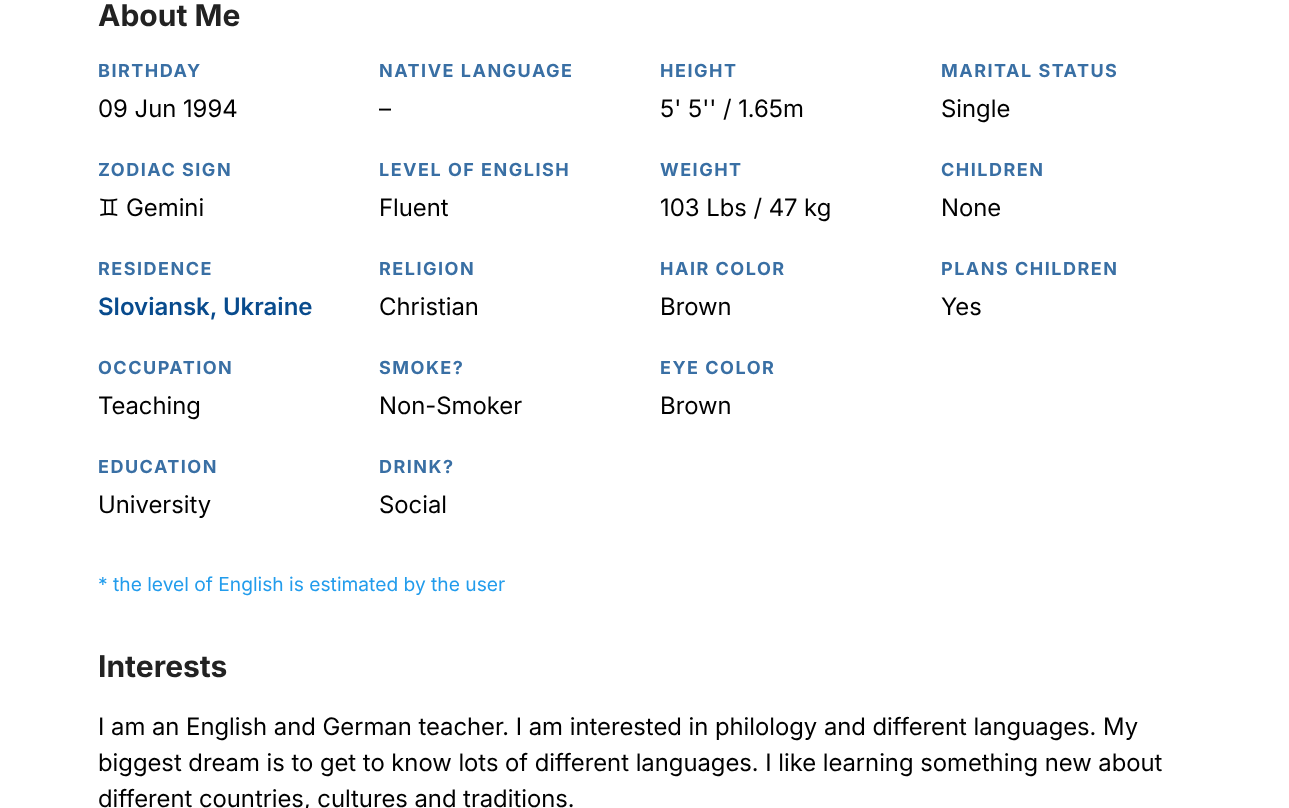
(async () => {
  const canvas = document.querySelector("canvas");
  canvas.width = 1289;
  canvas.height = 808;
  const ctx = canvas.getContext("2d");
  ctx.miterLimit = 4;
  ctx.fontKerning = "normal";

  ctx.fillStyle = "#ffffff";
  ctx.fillRect(0, 0, 1289, 808);
  ctx.font = "bold 30px Inter";
  ctx.fillStyle = "#222222";
  ctx.fillText("About Me", 98, 26);
  ctx.letterSpacing = "1.5px";
  ctx.font = "bold 18px Inter";
  ctx.fillStyle = "#396fa4";
  ctx.fillText("BIRTHDAY", 98, 77);
  ctx.letterSpacing = "0px";
  ctx.font = "24px 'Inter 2'";
  ctx.fillStyle = "#000000";
  ctx.fillText("09 Jun 1994", 98, 117);
  ctx.letterSpacing = "1.5px";
  ctx.font = "bold 18px Inter";
  ctx.fillStyle = "#396fa4";
  ctx.fillText("ZODIAC SIGN", 98, 176);
  ctx.letterSpacing = "0px";
  ctx.font = "24px DejaVu Sans";
  ctx.fillStyle = "#000000";
  ctx.fillText("♊︎", 98, 216);
  ctx.font = "24px 'Inter 2'";
  ctx.fillText("Gemini", 126, 216);
  ctx.letterSpacing = "1.5px";
  ctx.font = "bold 18px Inter";
  ctx.fillStyle = "#396fa4";
  ctx.fillText("RESIDENCE", 98, 275);
  ctx.letterSpacing = "0px";
  ctx.font = "600 24px Inter";
  ctx.fillStyle = "#084b8d";
  ctx.fillText("Sloviansk, Ukraine", 98, 315);
  ctx.letterSpacing = "1.5px";
  ctx.font = "bold 18px Inter";
  ctx.fillStyle = "#396fa4";
  ctx.fillText("OCCUPATION", 98, 374);
  ctx.letterSpacing = "0px";
  ctx.font = "24px 'Inter 2'";
  ctx.fillStyle = "#000000";
  ctx.fillText("Teaching", 98, 414);
  ctx.letterSpacing = "1.5px";
  ctx.font = "bold 18px Inter";
  ctx.fillStyle = "#396fa4";
  ctx.fillText("EDUCATION", 98, 473);
  ctx.letterSpacing = "0px";
  ctx.font = "24px 'Inter 2'";
  ctx.fillStyle = "#000000";
  ctx.fillText("University", 98, 513);
  ctx.letterSpacing = "1.5px";
  ctx.font = "bold 18px Inter";
  ctx.fillStyle = "#396fa4";
  ctx.fillText("NATIVE LANGUAGE", 379, 77);
  ctx.letterSpacing = "0px";
  ctx.font = "24px 'Inter 2'";
  ctx.fillStyle = "#000000";
  ctx.fillText("–", 379, 117);
  ctx.letterSpacing = "1.5px";
  ctx.font = "bold 18px Inter";
  ctx.fillStyle = "#396fa4";
  ctx.fillText("LEVEL OF ENGLISH", 379, 176);
  ctx.letterSpacing = "0px";
  ctx.font = "24px 'Inter 2'";
  ctx.fillStyle = "#000000";
  ctx.fillText("Fluent", 379, 216);
  ctx.letterSpacing = "1.5px";
  ctx.font = "bold 18px Inter";
  ctx.fillStyle = "#396fa4";
  ctx.fillText("RELIGION", 379, 275);
  ctx.letterSpacing = "0px";
  ctx.font = "24px 'Inter 2'";
  ctx.fillStyle = "#000000";
  ctx.fillText("Christian", 379, 315);
  ctx.letterSpacing = "1.5px";
  ctx.font = "bold 18px Inter";
  ctx.fillStyle = "#396fa4";
  ctx.fillText("SMOKE?", 379, 374);
  ctx.letterSpacing = "0px";
  ctx.font = "24px 'Inter 2'";
  ctx.fillStyle = "#000000";
  ctx.fillText("Non-Smoker", 379, 414);
  ctx.letterSpacing = "1.5px";
  ctx.font = "bold 18px Inter";
  ctx.fillStyle = "#396fa4";
  ctx.fillText("DRINK?", 379, 473);
  ctx.letterSpacing = "0px";
  ctx.font = "24px 'Inter 2'";
  ctx.fillStyle = "#000000";
  ctx.fillText("Social", 379, 513);
  ctx.letterSpacing = "1.5px";
  ctx.font = "bold 18px Inter";
  ctx.fillStyle = "#396fa4";
  ctx.fillText("HEIGHT", 660, 77);
  ctx.letterSpacing = "0px";
  ctx.font = "24px 'Inter 2'";
  ctx.fillStyle = "#000000";
  ctx.fillText("5' 5'' / 1.65m", 660, 117);
  ctx.letterSpacing = "1.5px";
  ctx.font = "bold 18px Inter";
  ctx.fillStyle = "#396fa4";
  ctx.fillText("WEIGHT", 660, 176);
  ctx.letterSpacing = "0px";
  ctx.font = "24px 'Inter 2'";
  ctx.fillStyle = "#000000";
  ctx.fillText("103 Lbs / 47 kg", 660, 216);
  ctx.letterSpacing = "1.5px";
  ctx.font = "bold 18px Inter";
  ctx.fillStyle = "#396fa4";
  ctx.fillText("HAIR COLOR", 660, 275);
  ctx.letterSpacing = "0px";
  ctx.font = "24px 'Inter 2'";
  ctx.fillStyle = "#000000";
  ctx.fillText("Brown", 660, 315);
  ctx.letterSpacing = "1.5px";
  ctx.font = "bold 18px Inter";
  ctx.fillStyle = "#396fa4";
  ctx.fillText("EYE COLOR", 660, 374);
  ctx.letterSpacing = "0px";
  ctx.font = "24px 'Inter 2'";
  ctx.fillStyle = "#000000";
  ctx.fillText("Brown", 660, 414);
  ctx.letterSpacing = "1.5px";
  ctx.font = "bold 18px Inter";
  ctx.fillStyle = "#396fa4";
  ctx.fillText("MARITAL STATUS", 941, 77);
  ctx.letterSpacing = "0px";
  ctx.font = "24px 'Inter 2'";
  ctx.fillStyle = "#000000";
  ctx.fillText("Single", 941, 117);
  ctx.letterSpacing = "1.5px";
  ctx.font = "bold 18px Inter";
  ctx.fillStyle = "#396fa4";
  ctx.fillText("CHILDREN", 941, 176);
  ctx.letterSpacing = "0px";
  ctx.font = "24px 'Inter 2'";
  ctx.fillStyle = "#000000";
  ctx.fillText("None", 941, 216);
  ctx.letterSpacing = "1.5px";
  ctx.font = "bold 18px Inter";
  ctx.fillStyle = "#396fa4";
  ctx.fillText("PLANS CHILDREN", 941, 275);
  ctx.letterSpacing = "0px";
  ctx.font = "24px 'Inter 2'";
  ctx.fillStyle = "#000000";
  ctx.fillText("Yes", 941, 315);
  ctx.font = "19.2px Inter";
  ctx.fillStyle = "#229cec";
  ctx.fillText("* the level of English is estimated by the user", 98, 591);
  ctx.font = "bold 30px Inter";
  ctx.fillStyle = "#222222";
  ctx.fillText("Interests", 98, 677);
  ctx.font = "24px 'Inter 2'";
  ctx.fillStyle = "#000000";
  for (const [text, x, y] of [
    ["I am an English and German teacher. I am interested in philology and different languages. My", 98, 735],
    ["biggest dream is to get to know lots of different languages. I like learning something new about", 98, 771],
    ["different countries, cultures and traditions.", 98, 807],
  ]) {
    ctx.fillText(text, x, y);
  }
})();
